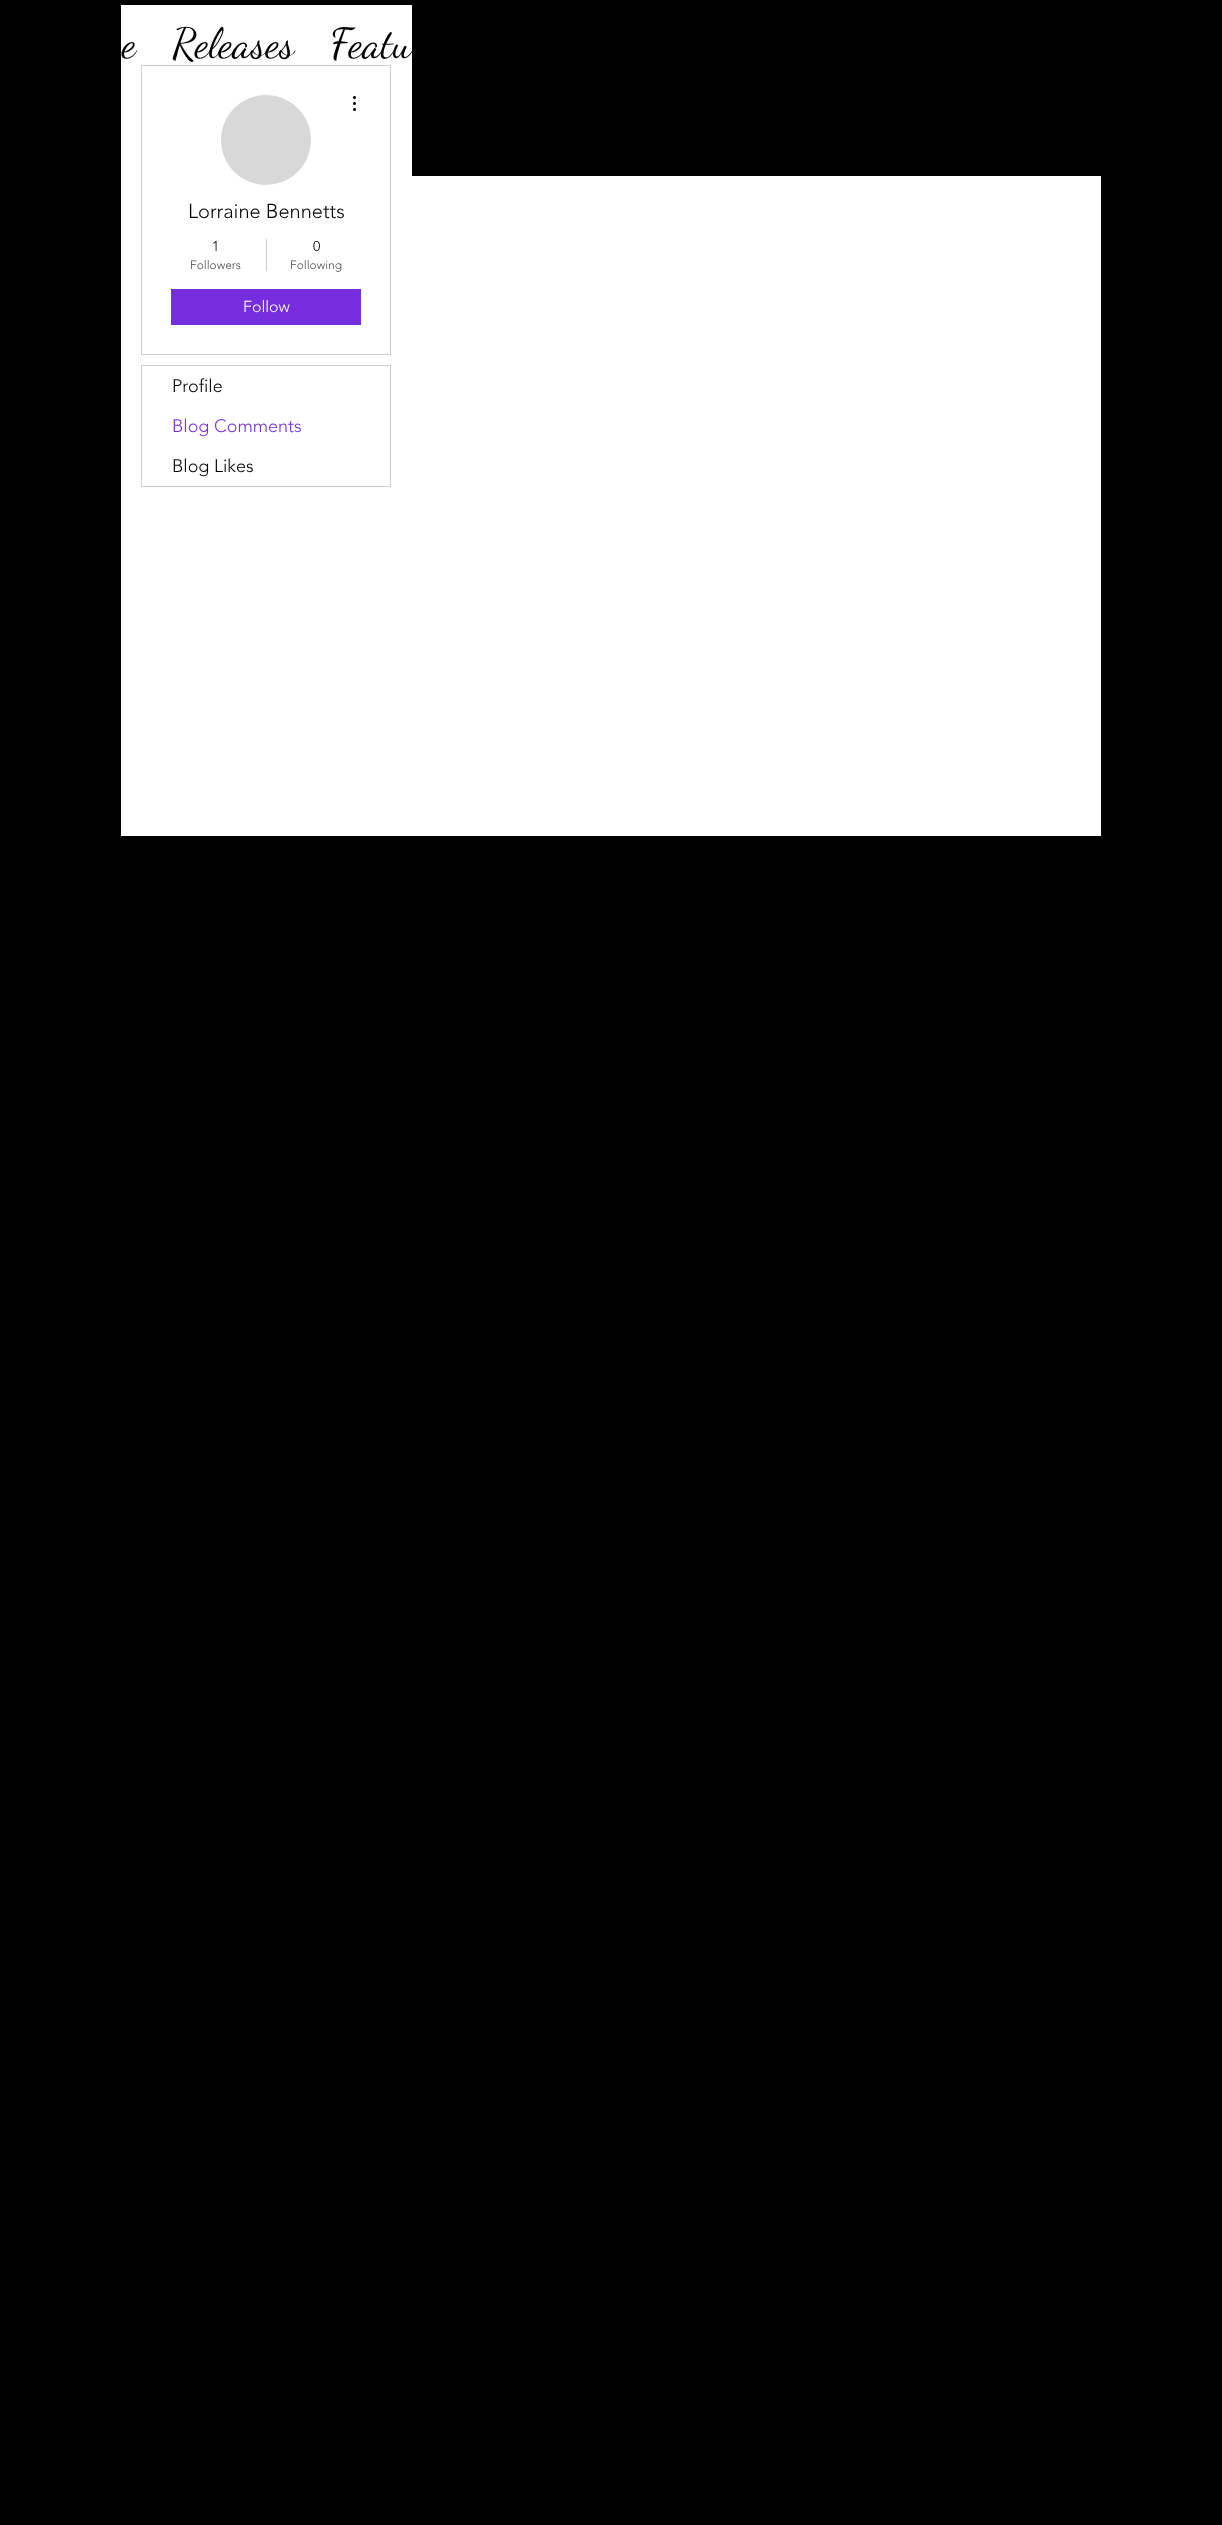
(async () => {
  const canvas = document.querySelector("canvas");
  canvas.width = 1222;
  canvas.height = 2525;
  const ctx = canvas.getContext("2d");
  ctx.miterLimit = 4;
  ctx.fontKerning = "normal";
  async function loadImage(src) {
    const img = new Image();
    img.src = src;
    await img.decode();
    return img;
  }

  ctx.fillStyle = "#000000";
  ctx.fillRect(0, 0, 1222, 2525);
  ctx.fillStyle = "#ffffff";
  ctx.fillRect(121, 176, 980, 660);
  ctx.fillRect(121, 5, 291, 171);
  ctx.strokeStyle = "#cccccc";
  ctx.strokeRect(141.5, 65.5, 249, 289);
  ctx.fillStyle = "#d8d8d8";
  ctx.beginPath();
  ctx.arc(266, 140, 45, 0, Math.PI * 2);
  ctx.fill();
  ctx.drawImage(await loadImage("img/1.png"), 353, 96, 3, 15);
  ctx.fillStyle = "#cccccc";
  ctx.fillRect(266, 239, 1, 32);
  ctx.fillStyle = "#762ddd";
  ctx.fillRect(171, 289, 190, 36);
  ctx.strokeRect(141.5, 365.5, 249, 121);
  ctx.font = "42px Dancing Script";
  ctx.fillStyle = "#000000";
  for (const [text, x, y] of [
    ["e", 122, 57],
    ["Releases", 172, 57],
    ["Featu", 330, 57],
  ]) {
    ctx.fillText(text, x, y);
  }
  ctx.font = "300 20px 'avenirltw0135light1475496'";
  ctx.fillText("Lorraine Bennetts", 188, 218);
  ctx.font = "300 14px 'avenirltw0135light1475496'";
  ctx.fillText("1", 212, 251);
  ctx.font = "300 12px 'avenirltw0135light1475496'";
  ctx.fillStyle = "#4d4d4d";
  ctx.fillText("Followers", 190, 269);
  ctx.font = "300 14px 'avenirltw0135light1475496'";
  ctx.fillStyle = "#000000";
  ctx.fillText("0", 313, 251);
  ctx.font = "300 12px 'avenirltw0135light1475496'";
  ctx.fillStyle = "#4d4d4d";
  ctx.fillText("Following", 290, 269);
  ctx.font = "300 16px 'avenirltw0135light1475496'";
  ctx.fillStyle = "#ffffff";
  ctx.fillText("Follow", 243, 312);
  ctx.font = "300 18px 'avenirltw0135light1475496'";
  ctx.fillStyle = "#000000";
  ctx.fillText("Profile", 172, 392);
  ctx.fillStyle = "#762ddd";
  ctx.fillText("Blog Comments", 172, 432);
  ctx.fillStyle = "#000000";
  ctx.fillText("Blog Likes", 172, 472);
})();
